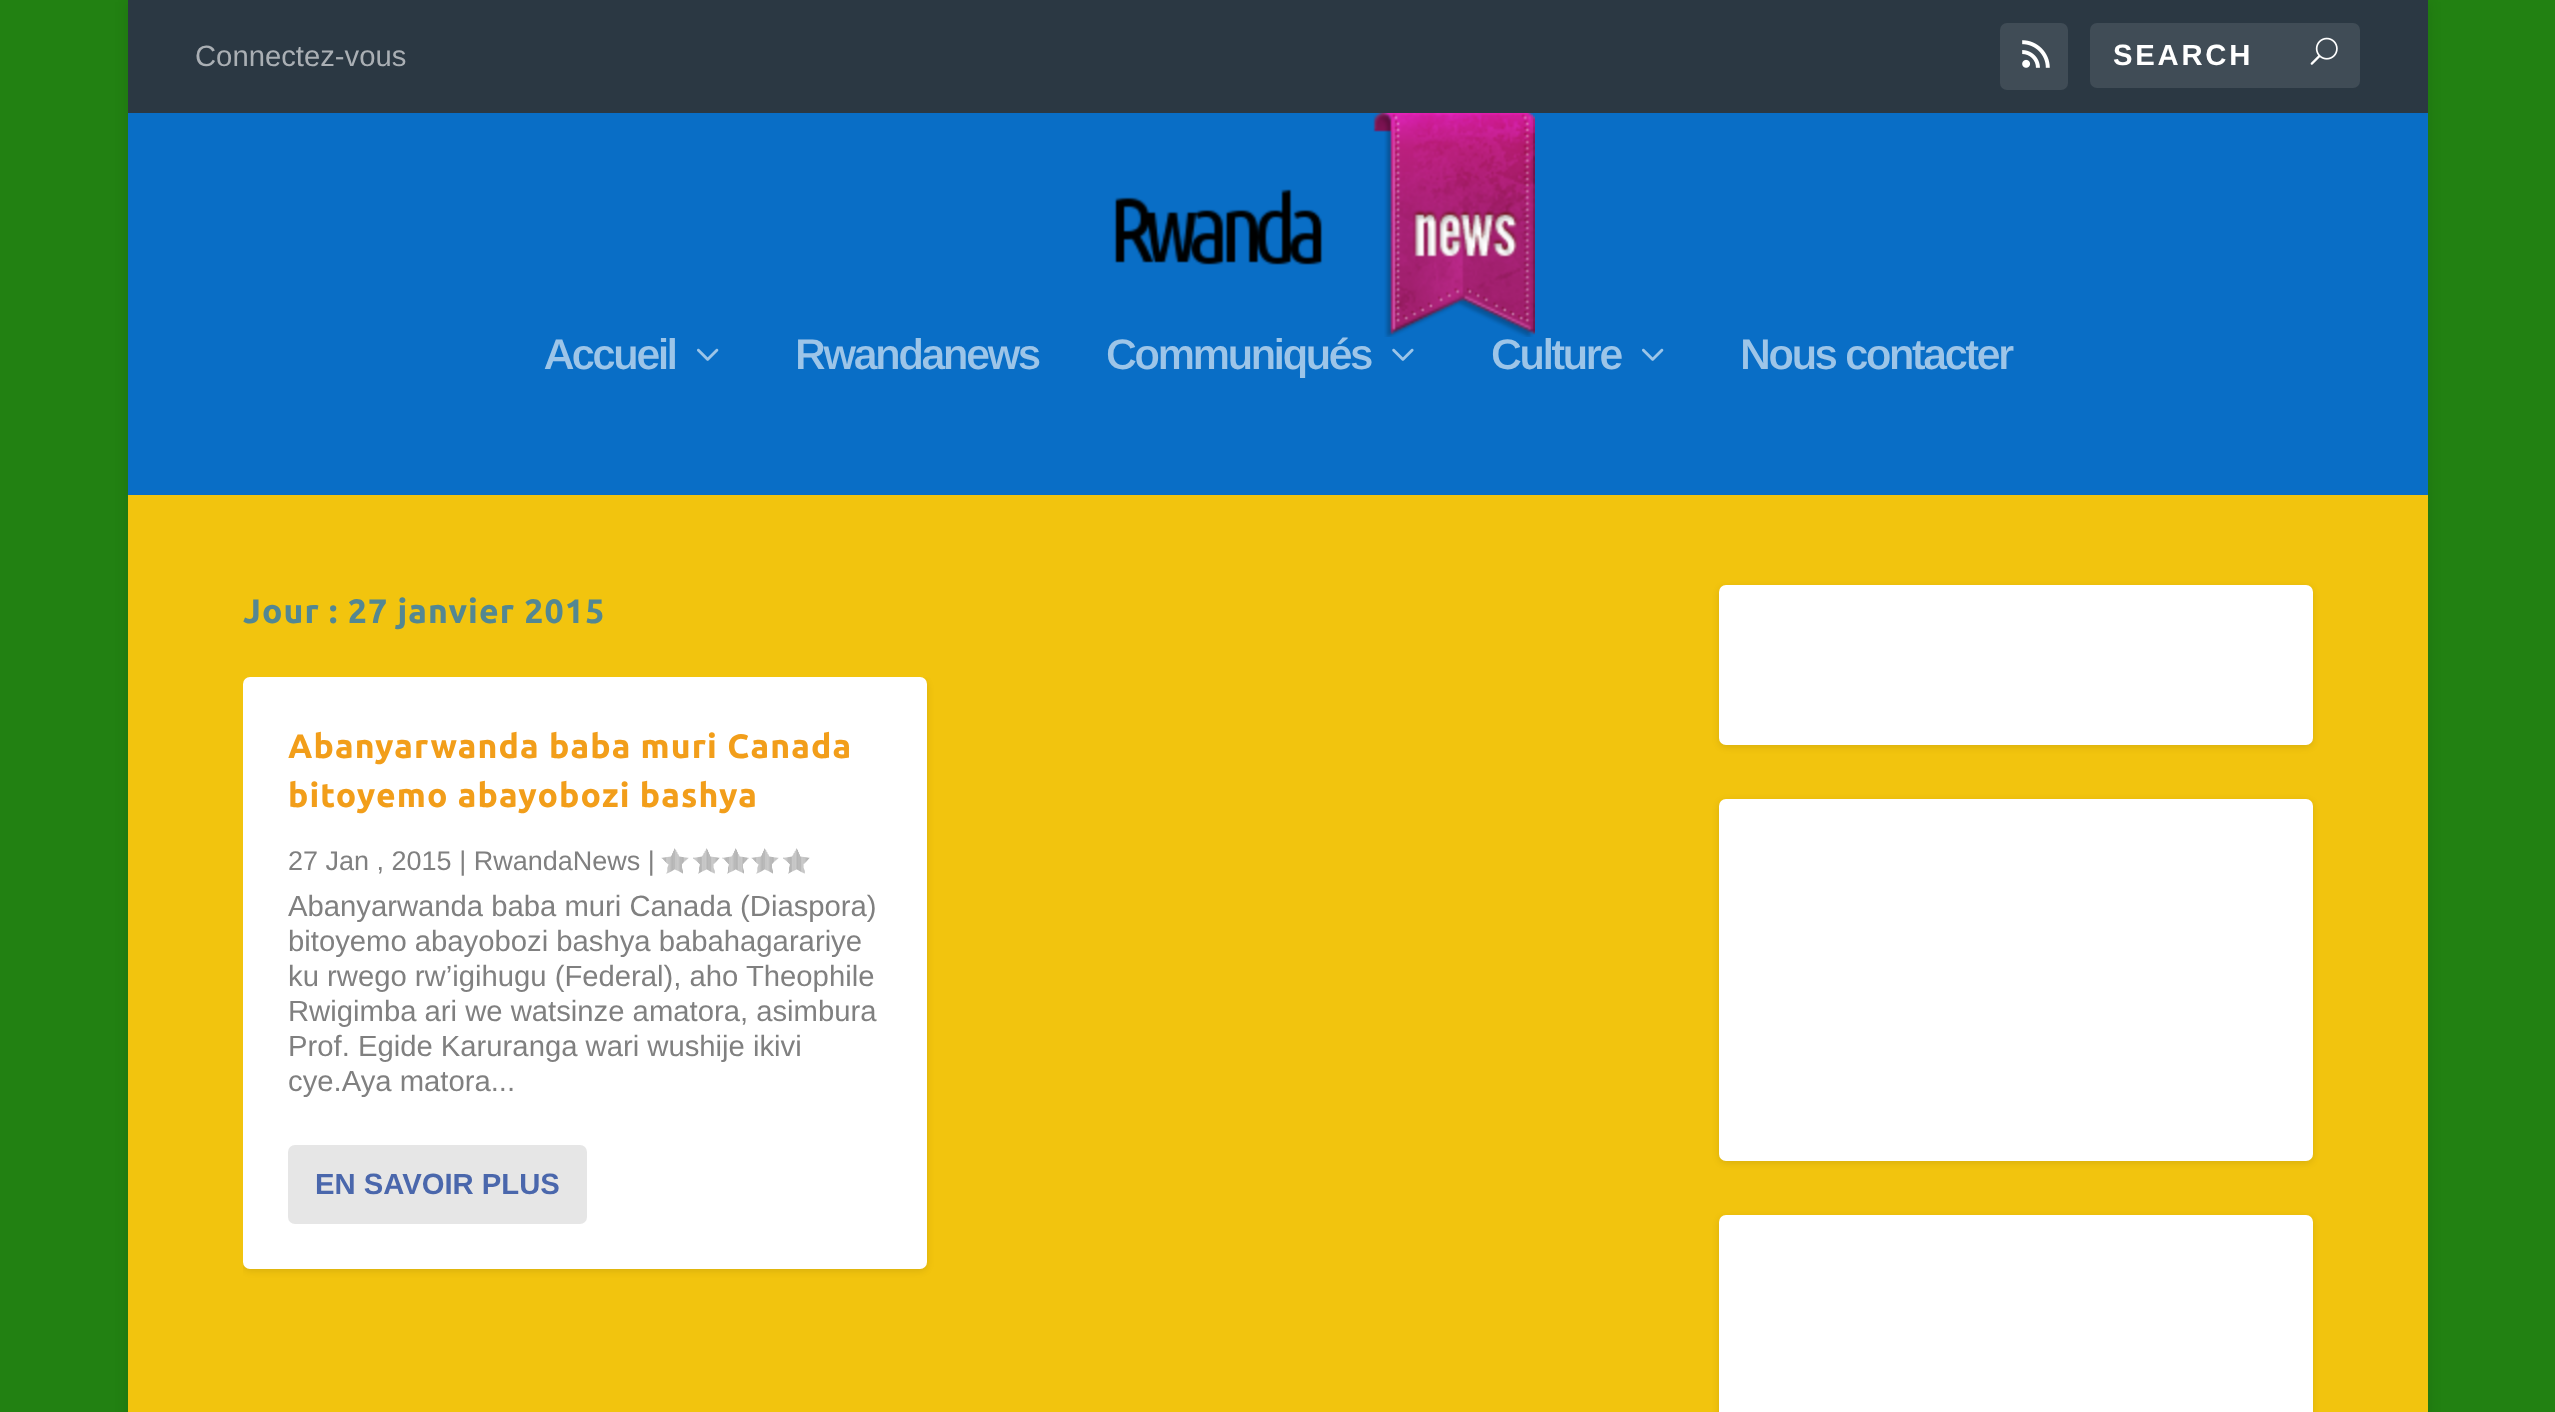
(async () => {
  const canvas = document.querySelector("canvas");
  canvas.width = 2555;
  canvas.height = 1412;
  const ctx = canvas.getContext("2d");
  ctx.miterLimit = 4;
  ctx.fontKerning = "normal";
  async function loadImage(src) {
    const img = new Image();
    img.src = src;
    await img.decode();
    return img;
  }

  ctx.fillStyle = "#228112";
  ctx.fillRect(0, 0, 2555, 1412);
  ctx.fillStyle = "rgba(0, 0, 0, 0.1)";
  ctx.filter = "blur(7px)";
  ctx.beginPath();
  ctx.rect(128, 2, 2300, 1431);
  ctx.fill();
  ctx.filter = "none";
  ctx.fillStyle = "#f2c40e";
  ctx.fillRect(128, 495, 2300, 917);
  ctx.fillStyle = "#2b3843";
  ctx.fillRect(128, 0, 2300, 113);
  ctx.fillStyle = "#404c56";
  ctx.beginPath();
  ctx.roundRect(2000, 23, 68, 67, 7);
  ctx.fill();
  ctx.drawImage(await loadImage("img/1.png"), 2022, 40, 28, 28);
  ctx.beginPath();
  ctx.roundRect(2090, 23, 270, 65, 7);
  ctx.fill();
  ctx.drawImage(await loadImage("img/2.png"), 2310, 37, 28, 28);
  ctx.fillStyle = "#096ec6";
  ctx.fillRect(128, 113, 2300, 382);
  ctx.drawImage(await loadImage("img/3.png"), 1114, 113, 421, 224);
  ctx.drawImage(await loadImage("img/4.png"), 697, 348, 22, 13);
  ctx.drawImage(await loadImage("img/5.png"), 1392, 348, 22, 13);
  ctx.drawImage(await loadImage("img/4.png"), 1642, 348, 22, 13);
  ctx.save();
  ctx.beginPath();
  ctx.roundRect(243, 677, 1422, 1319, 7);
  ctx.clip();
  ctx.fillStyle = "rgba(0, 0, 0, 0.1)";
  ctx.filter = "blur(3.5px)";
  ctx.beginPath();
  ctx.roundRect(243, 680, 684, 591, 7);
  ctx.fill();
  ctx.filter = "none";
  ctx.restore();
  ctx.fillStyle = "#ffffff";
  ctx.beginPath();
  ctx.roundRect(243, 677, 684, 592, 7);
  ctx.fill();
  ctx.drawImage(await loadImage("img/6.png"), 661, 848, 28, 26);
  ctx.drawImage(await loadImage("img/7.png"), 693, 848, 27, 26);
  ctx.drawImage(await loadImage("img/8.png"), 722, 848, 27, 26);
  ctx.drawImage(await loadImage("img/6.png"), 751, 848, 28, 26);
  ctx.drawImage(await loadImage("img/7.png"), 783, 848, 27, 26);
  ctx.fillStyle = "#e6e6e6";
  ctx.beginPath();
  ctx.roundRect(288, 1145, 299, 79, 7);
  ctx.fill();
  ctx.fillStyle = "rgba(0, 0, 0, 0.1)";
  ctx.filter = "blur(3.5px)";
  ctx.beginPath();
  ctx.roundRect(1719, 587, 594, 160, 7);
  ctx.fill();
  ctx.filter = "none";
  ctx.fillStyle = "#ffffff";
  ctx.beginPath();
  ctx.roundRect(1719, 585, 594, 160, 7);
  ctx.fill();
  ctx.fillStyle = "rgba(0, 0, 0, 0.1)";
  ctx.filter = "blur(3.5px)";
  ctx.beginPath();
  ctx.roundRect(1719, 801, 594, 362, 7);
  ctx.fill();
  ctx.filter = "none";
  ctx.fillStyle = "#ffffff";
  ctx.beginPath();
  ctx.roundRect(1719, 799, 594, 362, 7);
  ctx.fill();
  ctx.fillStyle = "rgba(0, 0, 0, 0.1)";
  ctx.filter = "blur(3.5px)";
  ctx.beginPath();
  ctx.roundRect(1719, 1217, 594, 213, 7);
  ctx.fill();
  ctx.filter = "none";
  ctx.fillStyle = "#ffffff";
  ctx.beginPath();
  ctx.roundRect(1719, 1215, 594, 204, 7);
  ctx.fill();
  ctx.font = "29.25px Liberation Sans";
  ctx.fillStyle = "#aaafb4";
  ctx.fillText("Connectez-vous", 195, 66);
  ctx.letterSpacing = "2.75px";
  ctx.font = "bold 29.25px Liberation Sans";
  ctx.fillStyle = "#ffffff";
  ctx.fillText("SEARCH", 2113, 65);
  ctx.letterSpacing = "-2.25px";
  ctx.font = "600 42.75px Arimo";
  ctx.fillStyle = "#9dc5e8";
  for (const [text, x, y] of [
    ["Accueil", 544, 369],
    ["Rwandanews", 795, 369],
    ["Communiqués", 1106, 369],
    ["Culture", 1491, 369],
    ["Nous contacter", 1740, 369],
  ]) {
    ctx.fillText(text, x, y);
  }
  ctx.letterSpacing = "1.1px";
  ctx.font = "bold 33.75px Ubuntu";
  ctx.fillStyle = "#538792";
  ctx.fillText("Jour : 27 janvier 2015", 243, 623);
  ctx.fillStyle = "#f29e1a";
  ctx.fillText("Abanyarwanda baba muri Canada", 288, 758);
  ctx.fillText("bitoyemo abayobozi bashya", 288, 807);
  ctx.letterSpacing = "0px";
  ctx.font = "27px Liberation Sans";
  ctx.fillStyle = "#808080";
  ctx.fillText("27 Jan , 2015 | RwandaNews |", 288, 870);
  ctx.font = "29.25px Liberation Sans";
  for (const [text, x, y] of [
    ["Abanyarwanda baba muri Canada (Diaspora)", 288, 916],
    ["bitoyemo abayobozi bashya babahagarariye", 288, 951],
    ["ku rwego rw’igihugu (Federal), aho Theophile", 288, 986],
    ["Rwigimba ari we watsinze amatora, asimbura", 288, 1021],
    ["Prof. Egide Karuranga wari wushije ikivi", 288, 1056],
    ["cye.Aya matora...", 288, 1091],
  ]) {
    ctx.fillText(text, x, y);
  }
  ctx.font = "bold 29.25px Liberation Sans";
  ctx.fillStyle = "#4a67ac";
  ctx.fillText("EN SAVOIR PLUS", 315, 1194);
})();
